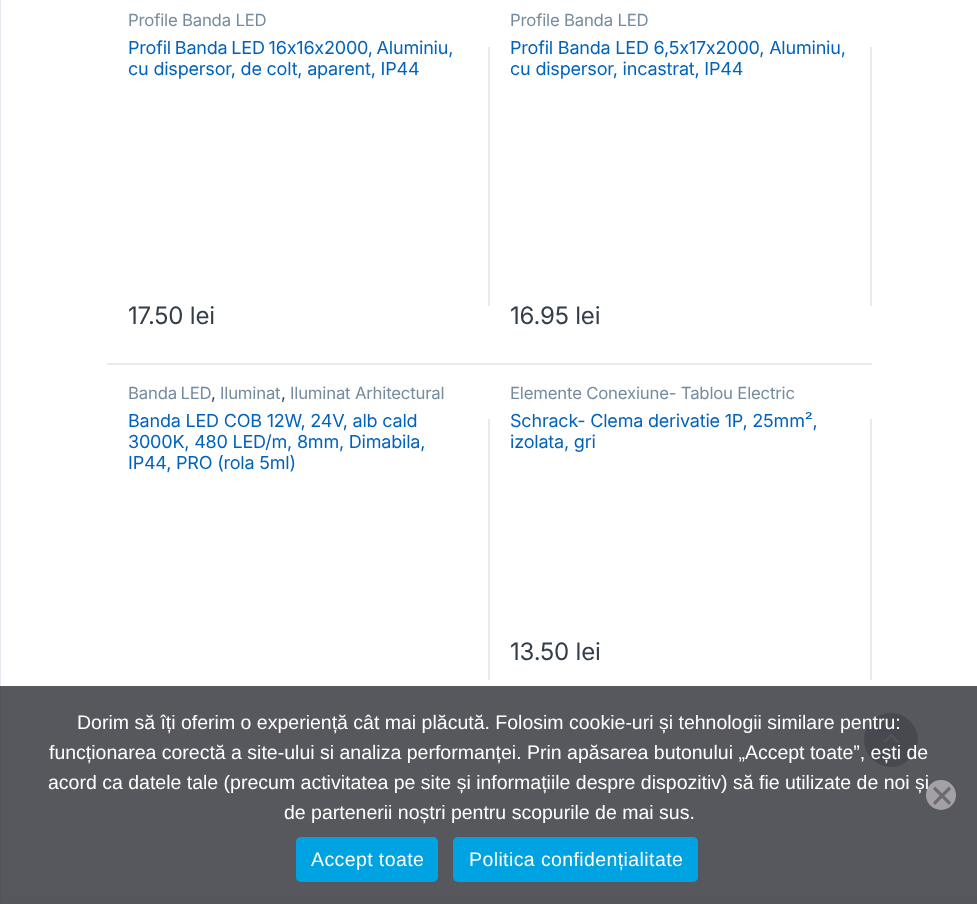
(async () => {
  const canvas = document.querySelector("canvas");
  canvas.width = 977;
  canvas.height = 904;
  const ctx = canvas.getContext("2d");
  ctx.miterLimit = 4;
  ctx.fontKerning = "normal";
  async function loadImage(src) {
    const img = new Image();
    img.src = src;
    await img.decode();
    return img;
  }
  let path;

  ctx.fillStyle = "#ffffff";
  ctx.fillRect(0, 0, 977, 904);
  for (const [x, y, w, h, color] of [
    [0, 897, 977, 7, "#f2f2f2"],
    [0, 0, 1, 904, "#e3e9ef"],
    [107, 363, 765, 2, "#eaeaea"],
    [488, 47, 2, 259, "#eaeaea"],
    [870, 47, 2, 259, "#eaeaea"],
    [488, 419, 2, 261, "#eaeaea"],
    [870, 419, 2, 261, "#eaeaea"],
  ]) {
    ctx.fillStyle = color;
    ctx.fillRect(x, y, w, h);
  }
  ctx.fillStyle = "#a7acb1";
  ctx.beginPath();
  ctx.arc(891, 740, 26, 0, Math.PI * 2);
  ctx.fill();
  ctx.strokeStyle = "#a7acb1";
  ctx.lineWidth = 2;
  ctx.stroke();
  ctx.drawImage(await loadImage("img/1.png"), 883, 734, 16, 9);
  ctx.fillStyle = "rgba(50, 50, 58, 0.82)";
  ctx.fillRect(0, 686, 977, 218);
  ctx.fillStyle = "#00a3e1";
  ctx.beginPath();
  ctx.roundRect(296, 837, 142, 45, 5);
  ctx.fill();
  ctx.beginPath();
  ctx.roundRect(453, 837, 245, 45, 5);
  ctx.fill();
  ctx.letterSpacing = "-0.2px";
  ctx.font = "16.75px Inter";
  ctx.fillStyle = "#768b9e";
  ctx.fillText("Profile Banda LED", 128, 26);
  ctx.wordSpacing = "-1px";
  ctx.font = "18px Inter";
  ctx.fillStyle = "#0062bd";
  ctx.fillText("Profil Banda LED 16x16x2000, Aluminiu,", 128, 54);
  ctx.wordSpacing = "0px";
  ctx.fillText("cu dispersor, de colt, aparent, IP44", 128, 75);
  ctx.font = "24px Inter";
  ctx.fillStyle = "#333e48";
  ctx.fillText("17.50 lei", 128, 324);
  ctx.font = "16.75px Inter";
  ctx.fillStyle = "#768b9e";
  ctx.fillText("Profile Banda LED", 510, 26);
  ctx.font = "18px Inter";
  ctx.fillStyle = "#0062bd";
  ctx.fillText("Profil Banda LED 6,5x17x2000, Aluminiu,", 510, 54);
  ctx.fillText("cu dispersor, incastrat, IP44", 510, 75);
  ctx.font = "24px Inter";
  ctx.fillStyle = "#333e48";
  ctx.fillText("16.95 lei", 510, 324);
  ctx.wordSpacing = "-1px";
  ctx.font = "16.75px Inter";
  ctx.fillStyle = "#768b9e";
  ctx.fillText("Banda LED", 128, 399);
  ctx.wordSpacing = "0px";
  ctx.fillStyle = "#333e48";
  ctx.fillText(",", 211, 399);
  ctx.fillStyle = "#768b9e";
  ctx.fillText("Iluminat", 220, 399);
  ctx.fillStyle = "#333e48";
  ctx.fillText(",", 281, 399);
  ctx.fillStyle = "#768b9e";
  ctx.fillText("Iluminat Arhitectural", 290, 399);
  ctx.font = "18px Inter";
  ctx.fillStyle = "#0062bd";
  for (const [text, x, y] of [
    ["Banda LED COB 12W, 24V, alb cald", 128, 427],
    ["3000K, 480 LED/m, 8mm, Dimabila,", 128, 448],
    ["IP44, PRO (rola 5ml)", 128, 469],
  ]) {
    ctx.fillText(text, x, y);
  }
  ctx.font = "16.75px Inter";
  ctx.fillStyle = "#768b9e";
  ctx.fillText("Elemente Conexiune- Tablou Electric", 510, 399);
  ctx.font = "18px Inter";
  ctx.fillStyle = "#0062bd";
  ctx.fillText("Schrack- Clema derivatie 1P, 25mm²,", 510, 427);
  ctx.fillText("izolata, gri", 510, 448);
  ctx.font = "24px Inter";
  ctx.fillStyle = "#333e48";
  ctx.fillText("13.50 lei", 510, 660);
  ctx.letterSpacing = "0px";
  ctx.font = "19.5px Liberation Sans";
  ctx.fillStyle = "#ffffff";
  for (const [text, x, y] of [
    ["Dorim să îți oferim o experiență cât mai plăcută. Folosim cookie-uri și tehnologii similare pentru:", 77, 729],
    ["funcționarea corectă a site-ului si analiza performanței. Prin apăsarea butonului „Accept toate”, ești de", 49, 759],
    ["acord ca datele tale (precum activitatea pe site și informațiile despre dispozitiv) să fie utilizate de noi și", 48, 789],
    ["de partenerii noștri pentru scopurile de mai sus.", 284, 819],
  ]) {
    ctx.fillText(text, x, y);
  }
  ctx.fillStyle = "rgba(239, 236, 236, 0.5)";
  ctx.beginPath();
  ctx.arc(941, 795, 15, 0, Math.PI * 2);
  ctx.fill();
  ctx.fillStyle = "#6b6b6f";
  path = new Path2D("M949 786.5L951 789L935 805L933 802.5Z");
  ctx.fill(path);
  path = new Path2D("M933 789L935 786.5L951 802.5L949 805Z");
  ctx.fill(path);
  ctx.letterSpacing = "0.4px";
  ctx.fillStyle = "#ffffff";
  ctx.fillText("Accept toate", 311, 866);
  ctx.fillText("Politica confidențialitate", 469, 866);
})();
